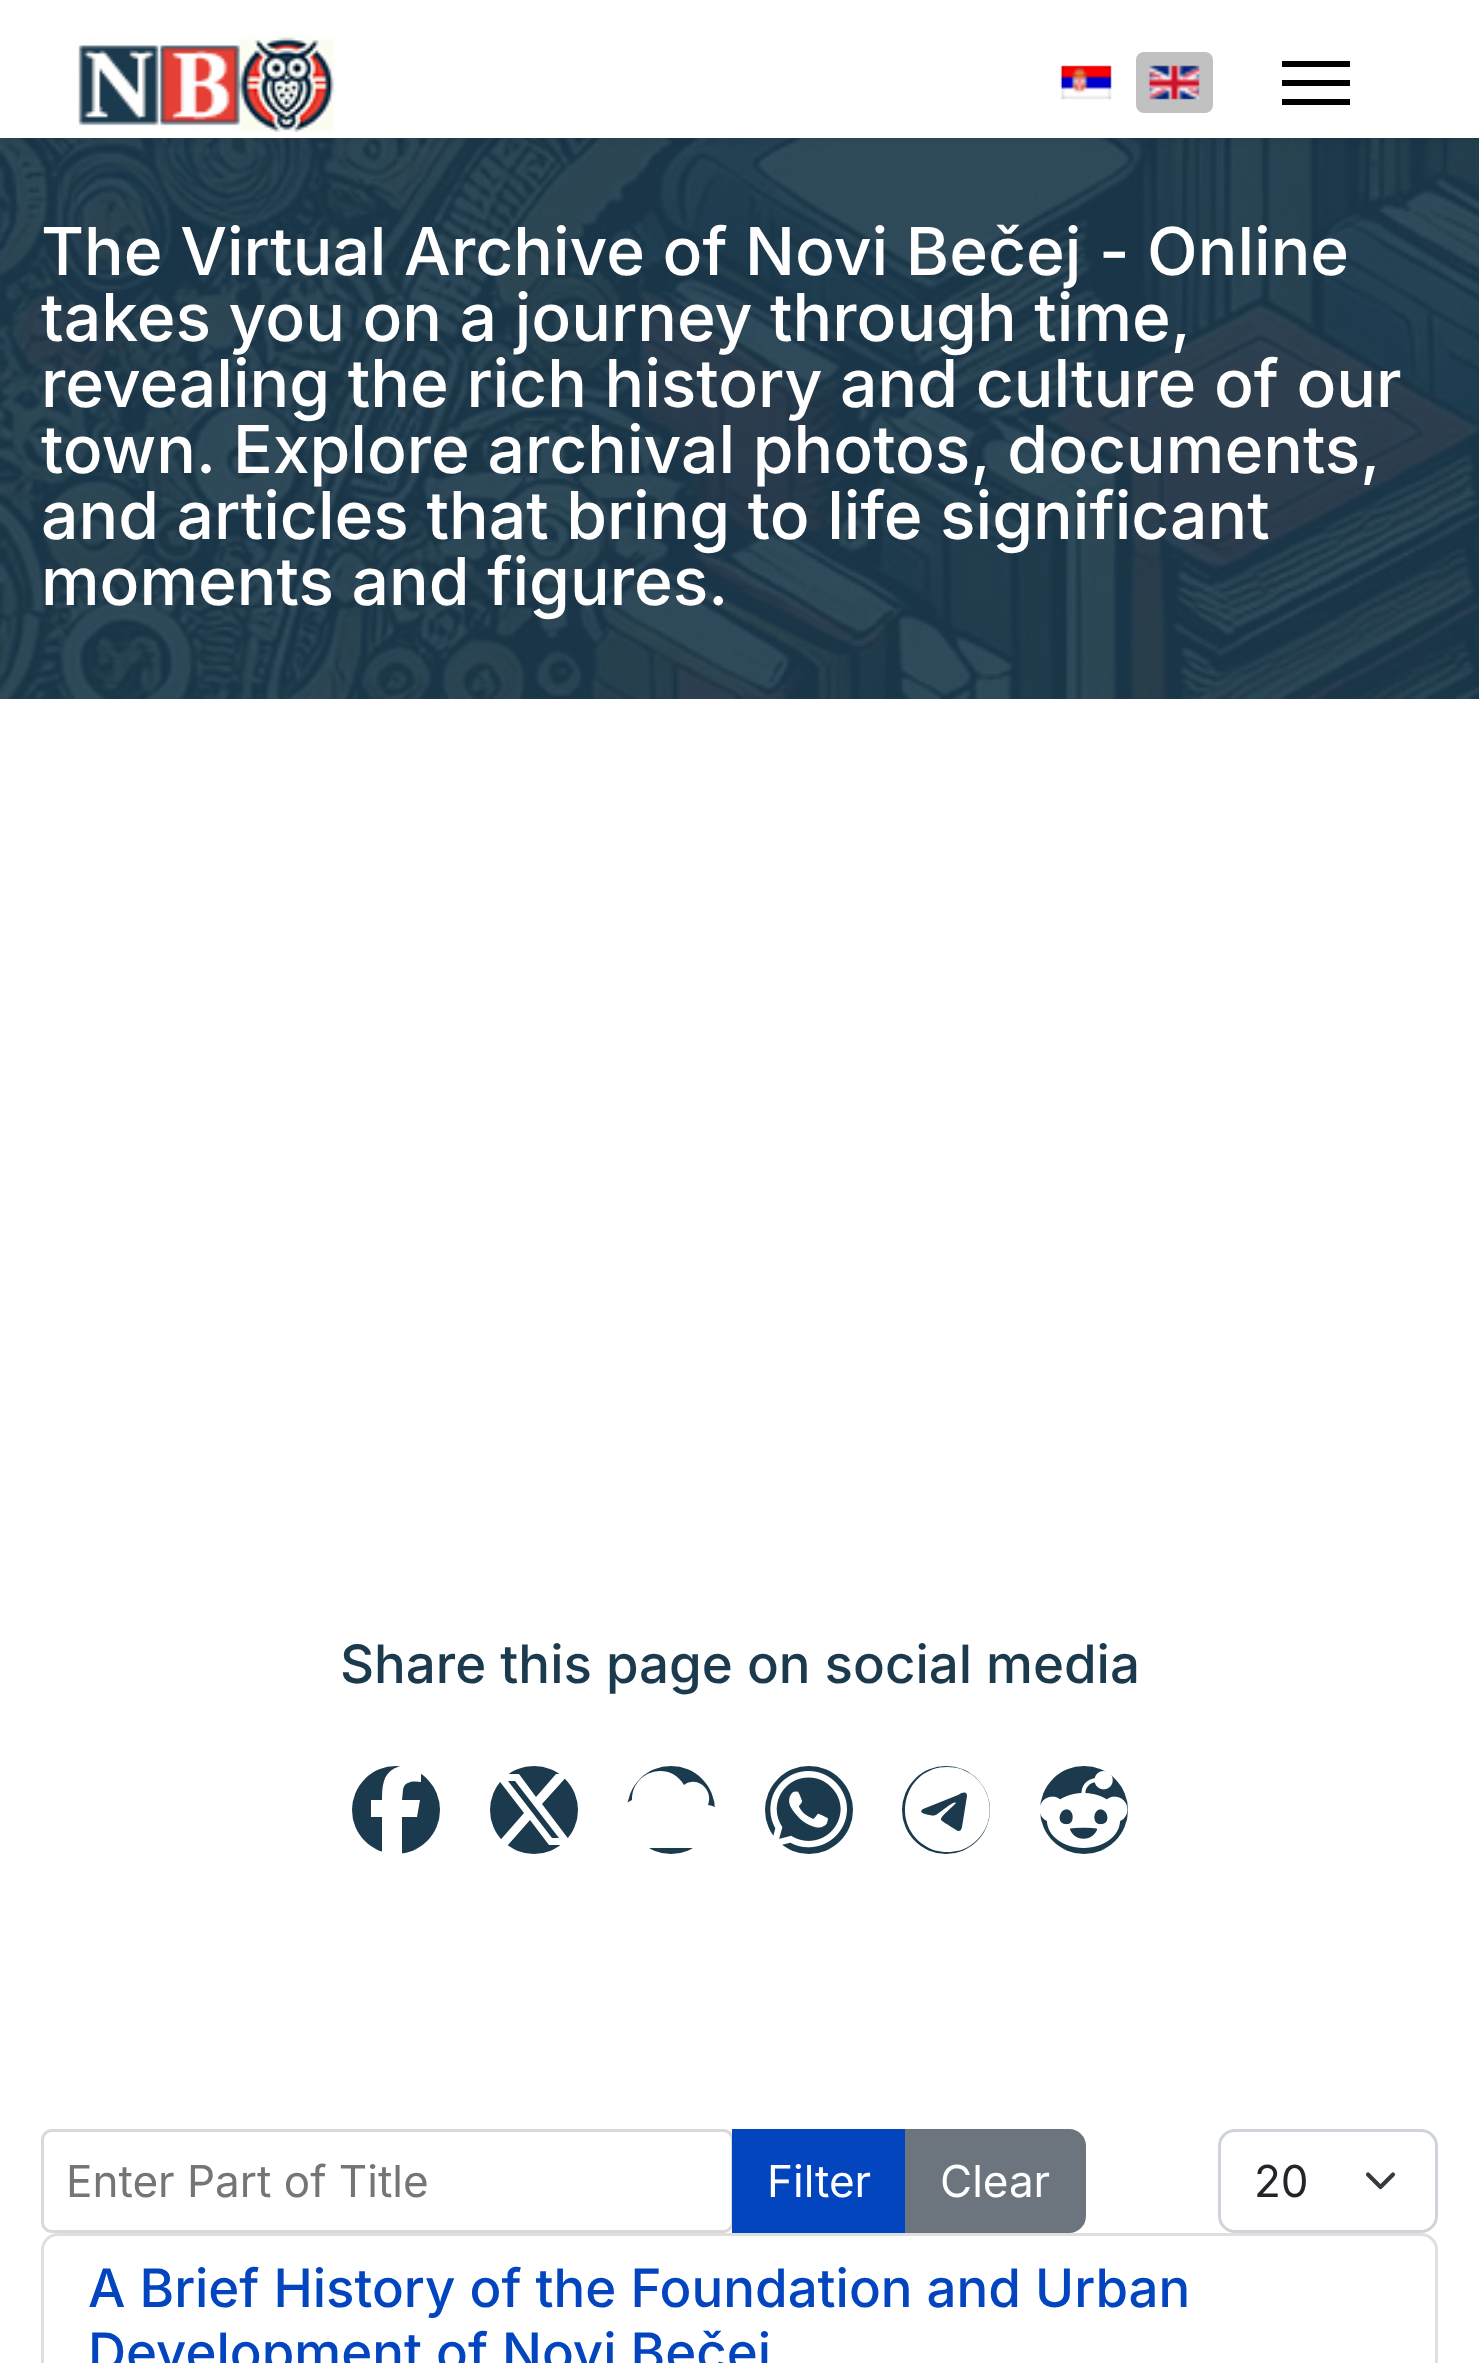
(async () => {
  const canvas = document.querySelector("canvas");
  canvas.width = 1479;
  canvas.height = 2363;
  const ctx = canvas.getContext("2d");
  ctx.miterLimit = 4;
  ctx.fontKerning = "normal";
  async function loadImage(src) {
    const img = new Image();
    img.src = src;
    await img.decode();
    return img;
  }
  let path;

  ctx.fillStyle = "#ffffff";
  ctx.fillRect(0, 0, 1479, 2363);
  ctx.drawImage(await loadImage("img/4.png"), 0, 138, 1479, 561);
  ctx.fillStyle = "rgba(0, 0, 0, 0.1)";
  ctx.filter = "blur(5.5px)";
  ctx.beginPath();
  ctx.rect(0, 0, 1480, 138);
  ctx.fill();
  ctx.filter = "none";
  ctx.fillStyle = "#ffffff";
  ctx.fillRect(0, 0, 1479, 138);
  ctx.drawImage(await loadImage("img/1.png"), 78, 36, 257, 96);
  ctx.drawImage(await loadImage("img/2.png"), 1060, 65, 52, 35);
  ctx.fillStyle = "#c1c1c1";
  ctx.beginPath();
  ctx.roundRect(1136, 52, 77, 61, 8);
  ctx.fill();
  ctx.drawImage(await loadImage("img/3.png"), 1148, 65, 52, 35);
  for (const [x, y, w, h, color] of [
    [1282, 61, 68, 6, "#000000"],
    [1282, 80, 68, 6, "#000000"],
    [1282, 99, 68, 6, "#000000"],
  ]) {
    ctx.fillStyle = color;
    ctx.fillRect(x, y, w, h);
  }
  ctx.fillStyle = "#1b3a4e";
  ctx.beginPath();
  ctx.arc(396, 1810, 44, 0, Math.PI * 2);
  ctx.fill();
  ctx.fillStyle = "#ffffff";
  path = new Path2D("M382 1817V1854V1817V1854H402V1817H417L420 1800H402L403 1790C404 1781 414 1781 421 1782V1767C407 1763 389 1765 384 1781C382 1787 382 1794 382 1800H371V1817Z");
  ctx.fill(path);
  ctx.fillStyle = "#1b3a4e";
  ctx.beginPath();
  ctx.arc(534, 1810, 44, 0, Math.PI * 2);
  ctx.fill();
  ctx.fillStyle = "#ffffff";
  path = new Path2D("M556 1774H569H556H569L542 1804L573 1845H549L530 1820L508 1845H496L524 1813L494 1774H519L536 1797ZM552 1838H559H552H559L515 1781H508Z");
  ctx.fill(path);
  ctx.fillStyle = "#1b3a4e";
  ctx.beginPath();
  ctx.arc(671, 1810, 44, 0, Math.PI * 2);
  ctx.fill();
  ctx.fillStyle = "#ffffff";
  path = new Path2D("M616 1823C616 1835 624 1845 636 1847C641 1848 646 1848 651 1848H693C706 1848 719 1848 724 1835C726 1829 727 1824 725 1818C722 1811 716 1806 708 1805C714 1790 697 1775 684 1785C669 1760 632 1771 632 1800C623 1804 616 1813 616 1823Z");
  ctx.fill(path);
  ctx.fillStyle = "#1b3a4e";
  ctx.beginPath();
  ctx.arc(809, 1810, 44, 0, Math.PI * 2);
  ctx.fill();
  ctx.drawImage(await loadImage("img/5.png"), 770, 1771, 77, 77);
  ctx.beginPath();
  ctx.arc(946, 1810, 44, 0, Math.PI * 2);
  ctx.fill();
  ctx.fillStyle = "#ffffff";
  path = new Path2D("M947 1767C906 1767 889 1821 924 1845C931 1850 939 1852 947 1852C956 1852 964 1850 971 1845C1006 1821 989 1767 947 1767ZM967 1796L962 1827C961 1833 957 1831 953 1828C950 1826 943 1822 941 1820C940 1817 949 1810 954 1805L956 1803C955 1801 948 1806 947 1807C934 1816 937 1817 925 1814C921 1813 920 1811 923 1809L958 1795C961 1793 967 1790 967 1796Z");
  ctx.fill(path);
  ctx.fillStyle = "#1b3a4e";
  ctx.beginPath();
  ctx.arc(1084, 1810, 44, 0, Math.PI * 2);
  ctx.fill();
  ctx.drawImage(await loadImage("img/6.png"), 1040, 1771, 88, 77);
  ctx.beginPath();
  ctx.roundRect(42.5, 2130.5, 690, 101, 9.5);
  ctx.strokeStyle = "#d9d9d9";
  ctx.lineWidth = 3;
  ctx.stroke();
  ctx.fillStyle = "#0345bf";
  ctx.fillRect(732, 2129, 173, 104);
  ctx.fillStyle = "#6c757d";
  ctx.beginPath();
  ctx.roundRect(906.5, 2130.5, 178, 101, [0, 15.5, 15.5, 0]);
  ctx.fill();
  ctx.strokeStyle = "#6c757d";
  ctx.stroke();
  path = new Path2D("M1368 2174.5L1380.5 2187L1393 2174.5");
  ctx.strokeStyle = "#343a40";
  ctx.lineWidth = 4.1;
  ctx.lineCap = "round";
  ctx.lineJoin = "round";
  ctx.stroke(path);
  ctx.beginPath();
  ctx.roundRect(1219.5, 2130.5, 217, 101, 15.5);
  ctx.strokeStyle = "#ced4da";
  ctx.lineWidth = 3;
  ctx.lineJoin = "miter";
  ctx.stroke();
  path = new Path2D("M58 2234.5H1421C1429.5 2234.5 1436.5 2241.5 1436.5 2250V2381.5H42.5V2250C42.5 2241.5 49.5 2234.5 58 2234.5Z");
  ctx.strokeStyle = "#dfdfdf";
  ctx.stroke(path);
  ctx.font = "500 66px Inter";
  ctx.fillStyle = "#ffffff";
  for (const [text, x, y] of [
    ["The Virtual Archive of Novi Bečej - Online", 41, 275],
    ["takes you on a journey through time,", 41, 341],
    ["revealing the rich history and culture of our", 41, 407],
    ["town. Explore archival photos, documents,", 41, 473],
    ["and articles that bring to life significant", 41, 539],
    ["moments and figures.", 41, 605],
  ]) {
    ctx.fillText(text, x, y);
  }
  ctx.font = "500 52.8px Inter";
  ctx.fillStyle = "#1b3a4e";
  ctx.fillText("Share this page on social media", 340, 1683);
  ctx.font = "44px Inter";
  ctx.fillStyle = "#757575";
  ctx.fillText("Enter Part of Title", 66, 2197);
  ctx.fillStyle = "#ffffff";
  ctx.fillText("Filter", 767, 2197);
  ctx.fillText("Clear", 940, 2197);
  ctx.fillStyle = "#212529";
  ctx.fillText("20", 1254, 2197);
  ctx.font = "500 52.8px Inter";
  ctx.fillStyle = "#0345bf";
  ctx.fillText("A Brief History of the Foundation and Urban", 88, 2307);
  ctx.fillText("Development of Novi Bečej", 88, 2371);
})();
